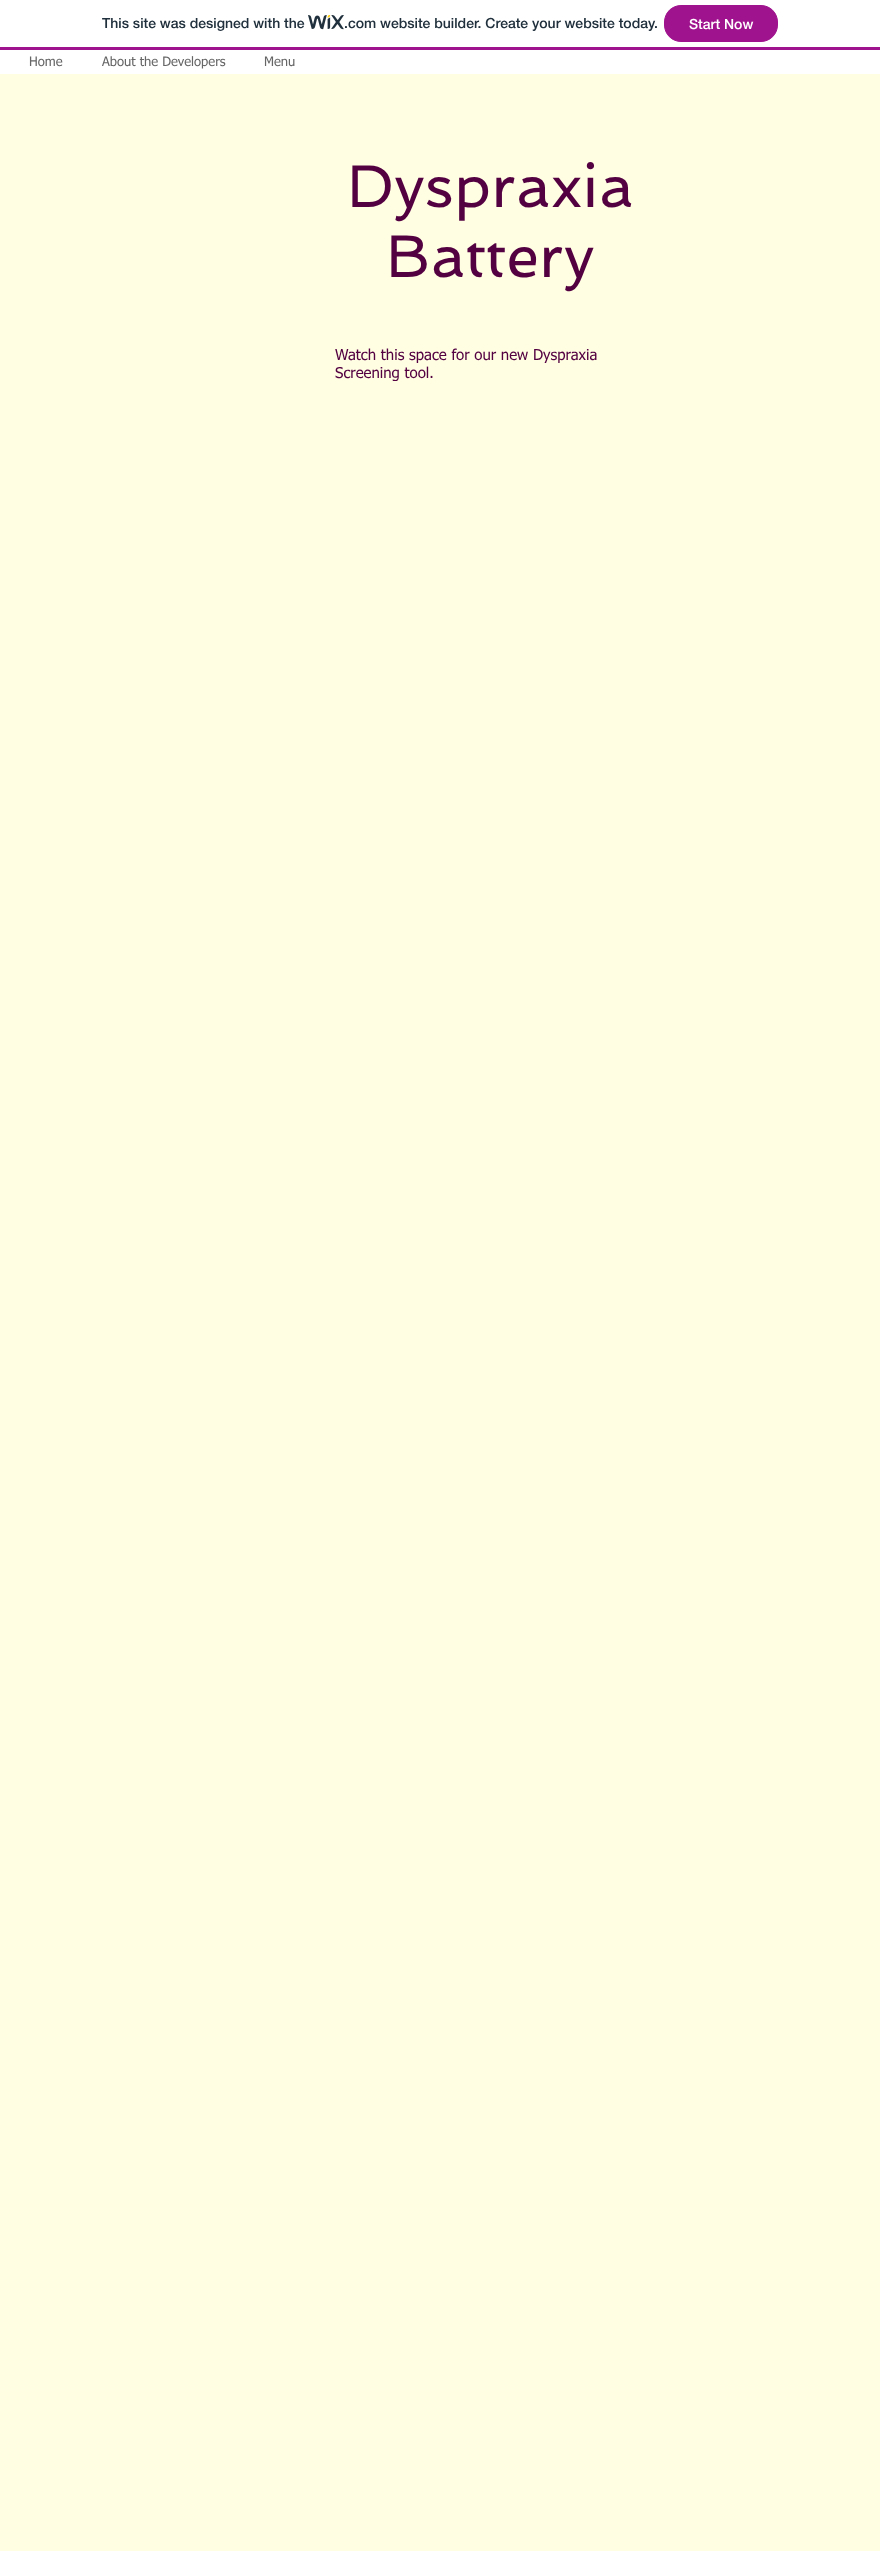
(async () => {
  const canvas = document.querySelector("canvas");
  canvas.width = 880;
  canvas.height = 2551;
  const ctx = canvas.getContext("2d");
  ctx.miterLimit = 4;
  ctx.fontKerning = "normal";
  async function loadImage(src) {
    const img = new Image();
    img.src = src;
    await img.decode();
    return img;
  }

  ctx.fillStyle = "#fffde2";
  ctx.fillRect(0, 0, 880, 2551);
  ctx.fillStyle = "#ffffff";
  ctx.fillRect(0, 0, 880, 47);
  ctx.fillStyle = "#a0138e";
  ctx.fillRect(0, 47, 880, 3);
  ctx.drawImage(await loadImage("img/1.png"), 308, 15, 36, 15);
  ctx.beginPath();
  ctx.roundRect(664.5, 5.5, 113, 36, 16.5);
  ctx.fill();
  ctx.strokeStyle = "#a0138e";
  ctx.stroke();
  ctx.fillStyle = "#ffffff";
  ctx.fillRect(0, 50, 880, 24);
  ctx.font = "500 14px 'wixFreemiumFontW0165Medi'";
  ctx.fillStyle = "#20303c";
  ctx.fillText("This site was designed with the", 102, 28);
  ctx.fillText(".com website builder. Create your website today.", 344, 28);
  ctx.fillStyle = "#ffffff";
  ctx.fillText("Start Now", 689, 29);
  ctx.font = "13px tahoma";
  ctx.fillStyle = "#666666";
  for (const [text, x, y] of [
    ["Home", 29, 66],
    ["About the Developers", 102, 66],
    ["Menu", 264, 66],
  ]) {
    ctx.fillText(text, x, y);
  }
  ctx.font = "60px Spinnaker";
  ctx.fillStyle = "#530141";
  ctx.fillText("Dyspraxia", 347, 207);
  ctx.fillText("Battery", 386, 277);
  ctx.font = "15px tahoma";
  ctx.fillText("Watch this space for our new Dyspraxia", 335, 360);
  ctx.fillText("Screening tool.", 335, 378);
})();
